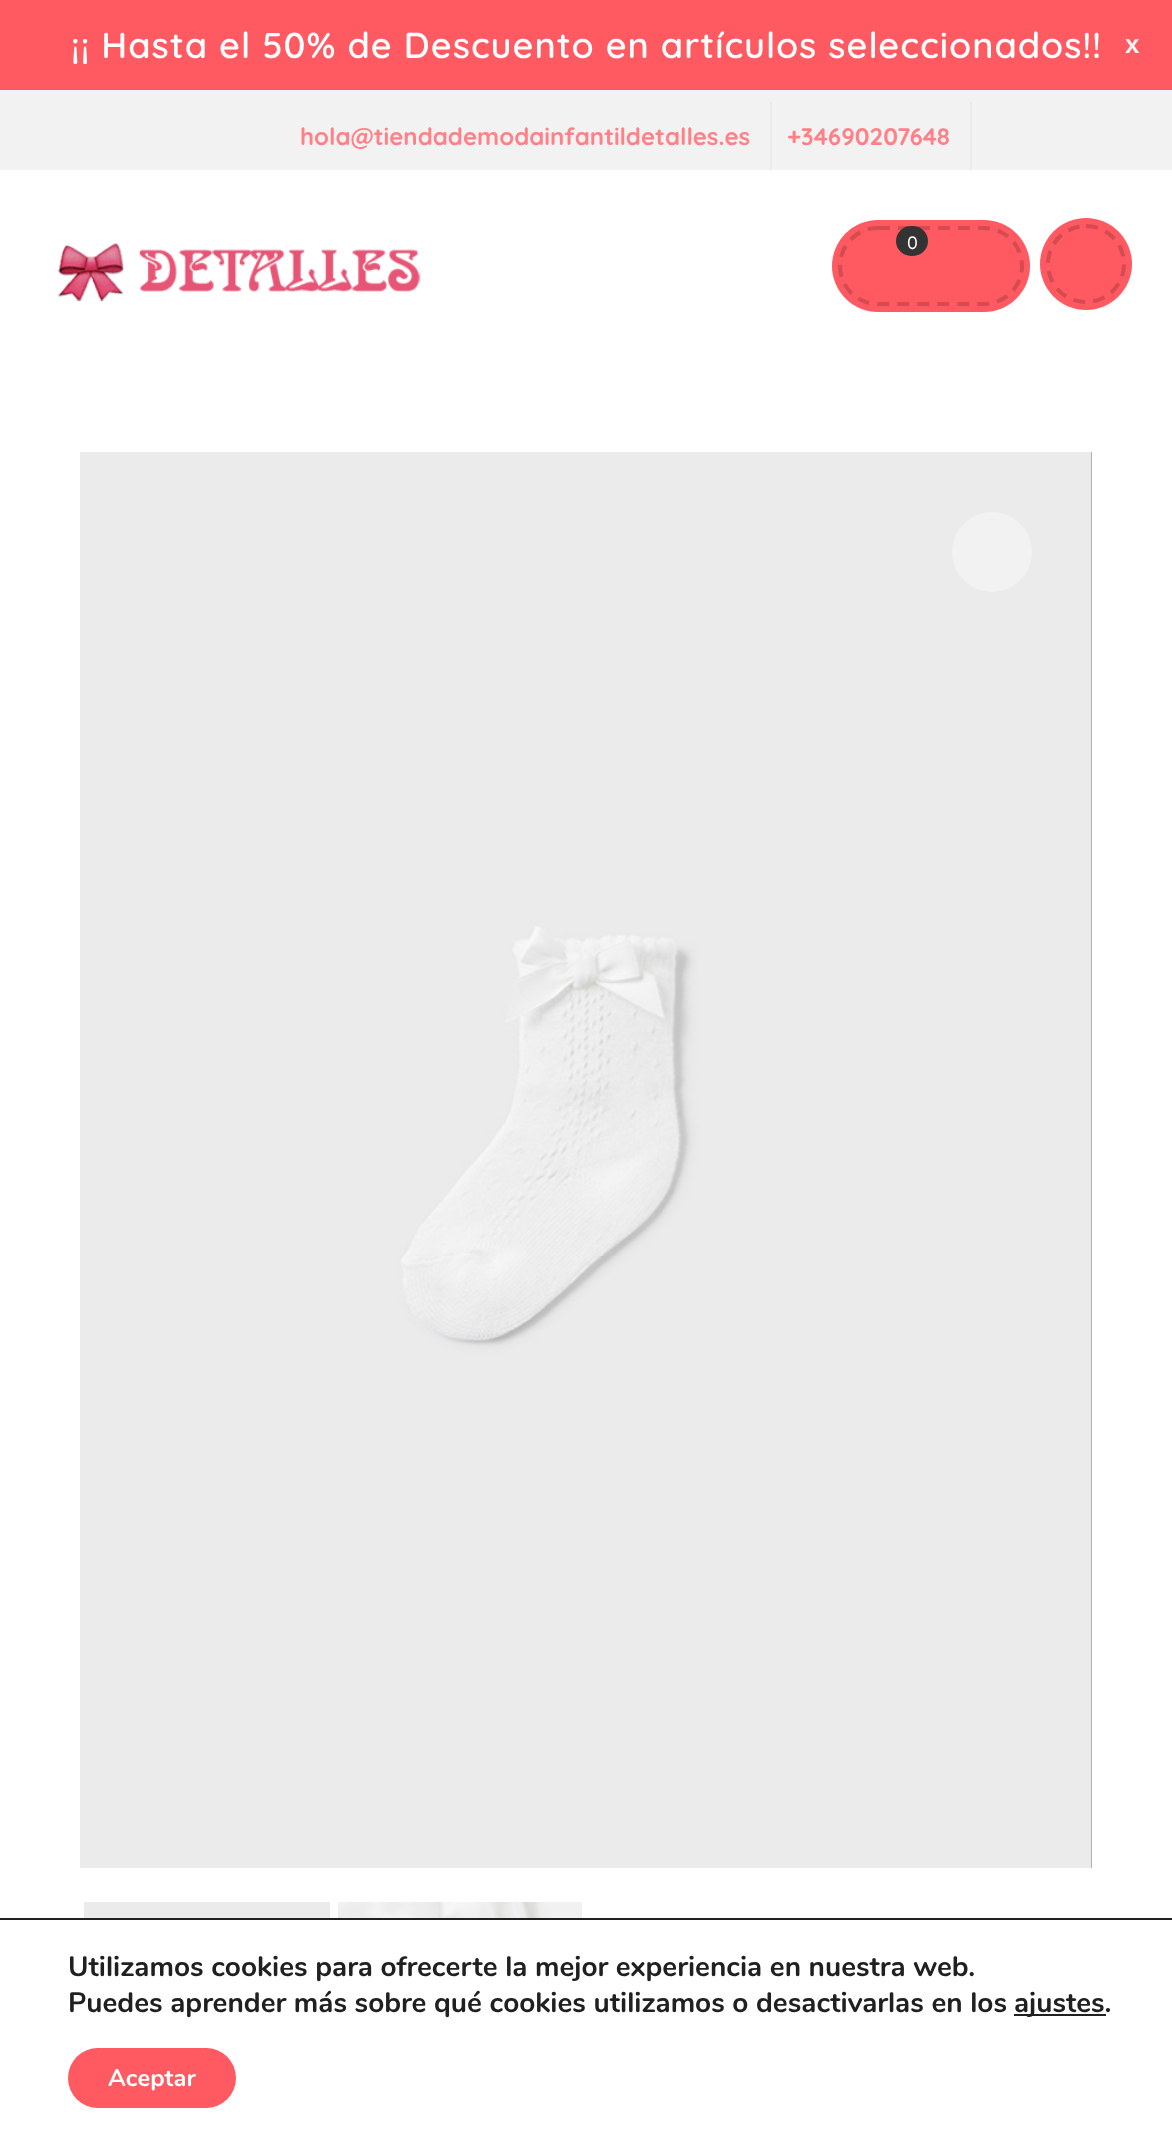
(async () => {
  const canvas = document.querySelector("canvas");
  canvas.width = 1172;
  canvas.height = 2143;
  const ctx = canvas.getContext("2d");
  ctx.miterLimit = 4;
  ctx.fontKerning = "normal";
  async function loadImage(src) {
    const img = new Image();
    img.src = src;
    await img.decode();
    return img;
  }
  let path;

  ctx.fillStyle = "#ffffff";
  ctx.fillRect(0, 0, 1172, 2143);
  for (const [x, y, w, h, color] of [
    [0, 0, 1172, 90, "#ff5961"],
    [0, 90, 1172, 80, "#f2f2f2"],
    [770, 102, 2, 68, "#ebebeb"],
    [970, 102, 2, 68, "#ebebeb"],
  ]) {
    ctx.fillStyle = color;
    ctx.fillRect(x, y, w, h);
  }
  ctx.drawImage(await loadImage("img/1.png"), 57, 243, 364, 59);
  ctx.fillStyle = "#ff5961";
  ctx.beginPath();
  ctx.roundRect(832, 220, 198, 92, 46);
  ctx.fill();
  path = new Path2D("M878 228H984C1005 228 1022 245 1022 266C1022 287 1005 304 984 304H878C857 304 840 287 840 266C840 245 857 228 878 228Z");
  ctx.strokeStyle = "#d64b51";
  ctx.lineWidth = 4;
  ctx.setLineDash([12, 8]);
  ctx.stroke(path);
  ctx.fillStyle = "#333333";
  ctx.beginPath();
  ctx.roundRect(896, 226, 32, 30, 15);
  ctx.fill();
  ctx.fillStyle = "#ff5961";
  ctx.beginPath();
  ctx.arc(1086, 264, 46, 0, Math.PI * 2);
  ctx.fill();
  path = new Path2D("M1086 226C1107 226 1124 243 1124 264C1124 285 1107 302 1086 302C1065 302 1048 285 1048 264C1048 243 1065 226 1086 226Z");
  ctx.stroke(path);
  ctx.fillStyle = "#333333";
  ctx.fillRect(1091, 452, 1, 1416);
  ctx.drawImage(await loadImage("img/2.png"), 80, 452, 1012, 1416);
  ctx.fillStyle = "#f2f2f2";
  ctx.beginPath();
  ctx.arc(992, 552, 40, 0, Math.PI * 2);
  ctx.fill();
  ctx.drawImage(await loadImage("img/3.png"), 84, 1902, 246, 16);
  ctx.drawImage(await loadImage("img/4.png"), 338, 1902, 244, 16);
  ctx.fillStyle = "#202020";
  ctx.fillRect(0, 1918, 1172, 2);
  ctx.fillRect(1014, 2014, 92, 2);
  ctx.fillStyle = "#ff5961";
  ctx.beginPath();
  ctx.roundRect(68, 2048, 168, 60, 30);
  ctx.fill();
  ctx.letterSpacing = "1px";
  ctx.font = "600 36px Quicksand";
  ctx.fillStyle = "#ffffff";
  ctx.fillText("¡¡ Hasta el 50% de Descuento en artículos seleccionados!!", 71, 58);
  ctx.font = "bold 26px Liberation Sans";
  ctx.fillStyle = "#f1f1f1";
  ctx.fillText("x", 1125, 53);
  ctx.letterSpacing = "0px";
  ctx.font = "bold 24px Quicksand";
  ctx.fillStyle = "#ff8087";
  ctx.fillText("hola@tiendademodainfantildetalles.es", 300, 145);
  ctx.fillText("+34690207648", 787, 145);
  ctx.font = "500 18px Quicksand";
  ctx.fillStyle = "#ffffff";
  ctx.fillText("0", 907, 249);
  ctx.font = "bold 28px Nunito";
  ctx.fillStyle = "#202020";
  for (const [text, x, y] of [
    ["Utilizamos cookies para ofrecerte la mejor experiencia en nuestra web.", 68, 1976],
    ["Puedes aprender más sobre qué cookies utilizamos o desactivarlas en los", 68, 2012],
    ["ajustes.", 1014, 2012],
  ]) {
    ctx.fillText(text, x, y);
  }
  ctx.font = "bold 24px Nunito";
  ctx.fillStyle = "#ffffff";
  ctx.fillText("Aceptar", 108, 2086);
})();
